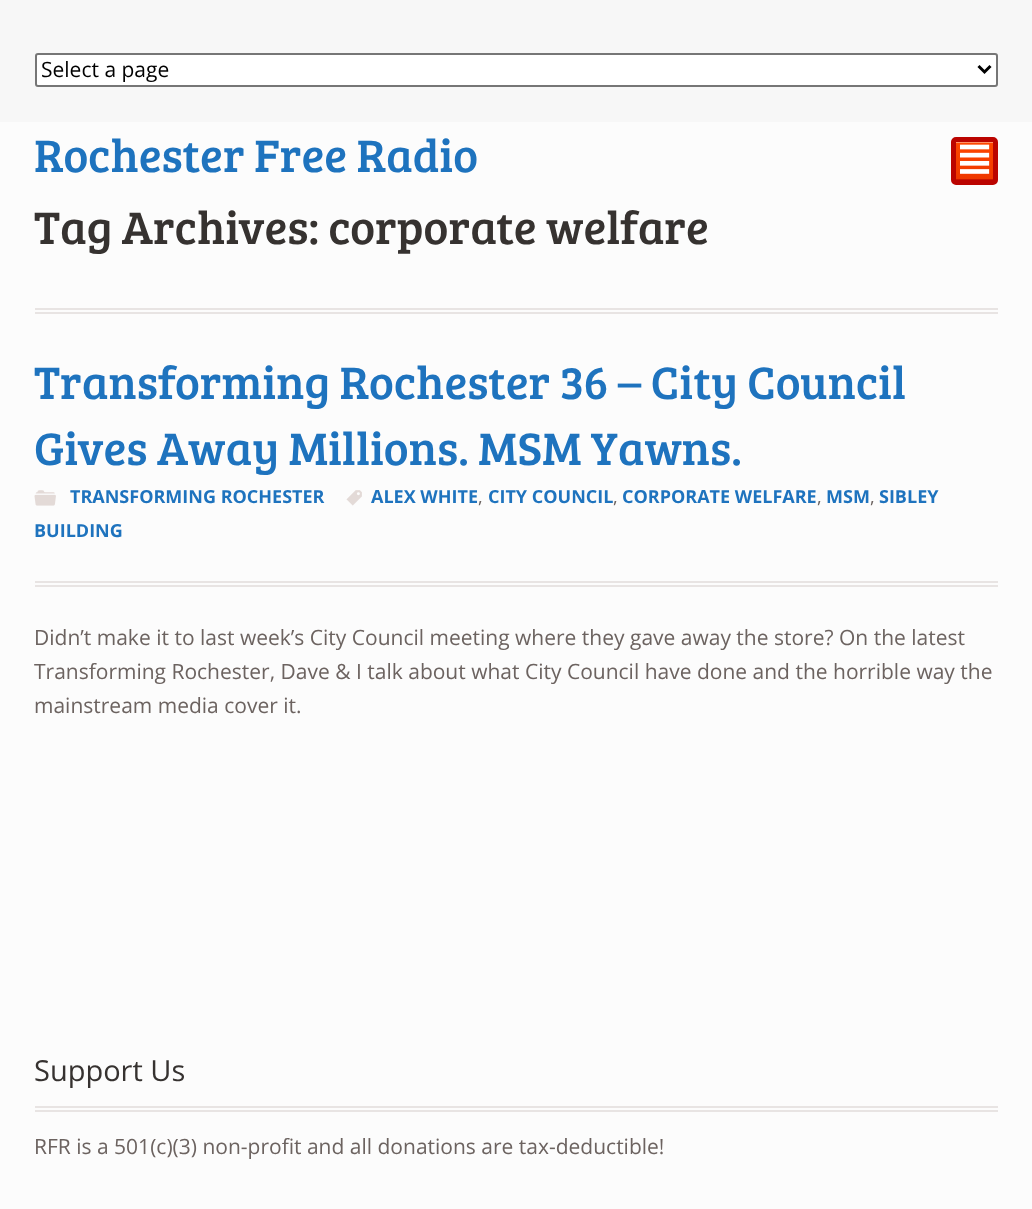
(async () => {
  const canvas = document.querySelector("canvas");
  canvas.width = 1032;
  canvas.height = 1209;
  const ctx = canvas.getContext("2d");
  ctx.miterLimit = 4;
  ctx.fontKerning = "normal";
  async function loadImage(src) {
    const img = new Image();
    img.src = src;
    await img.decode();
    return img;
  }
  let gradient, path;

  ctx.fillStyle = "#fcfcfc";
  ctx.fillRect(0, 0, 1032, 1209);
  ctx.fillStyle = "#f7f7f7";
  ctx.fillRect(0, 0, 1032, 122);
  ctx.fillStyle = "#ffffff";
  ctx.beginPath();
  ctx.roundRect(36, 54, 961, 32, 2);
  ctx.fill();
  ctx.strokeStyle = "#767676";
  ctx.lineWidth = 2;
  ctx.stroke();
  path = new Path2D("M978.5 66L984.5 72L990.5 66");
  ctx.strokeStyle = "#000000";
  ctx.lineWidth = 3;
  ctx.stroke(path);
  gradient = ctx.createLinearGradient(974, 141, 974, 180);
  gradient.addColorStop(0, "#ff4800");
  gradient.addColorStop(1, "#ee3700");
  ctx.fillStyle = gradient;
  ctx.fillRect(956, 143, 37, 36);
  ctx.fillStyle = "#cc1500";
  ctx.fillRect(956, 179, 37, 1);
  ctx.fillStyle = "#ff9166";
  ctx.fillRect(956, 142, 37, 1);
  ctx.beginPath();
  ctx.roundRect(953.5, 139.5, 42, 43, 2.5);
  ctx.strokeStyle = "#bb0400";
  ctx.lineWidth = 5;
  ctx.stroke();
  ctx.drawImage(await loadImage("img/1.png"), 960, 144, 30, 30);
  for (const [x, y, w, h, color] of [
    [35, 308, 963, 2, "#e8e4e3"],
    [35, 312, 963, 2, "#e8e4e3"],
    [35, 581, 963, 2, "#e8e4e3"],
    [35, 585, 963, 2, "#e8e4e3"],
  ]) {
    ctx.fillStyle = color;
    ctx.fillRect(x, y, w, h);
  }
  ctx.drawImage(await loadImage("img/2.png"), 346, 490, 16, 16);
  ctx.drawImage(await loadImage("img/3.png"), 34, 490, 22, 16);
  ctx.fillRect(35, 1106, 963, 2);
  ctx.fillRect(35, 1110, 963, 2);
  ctx.font = "21px Open Sans";
  ctx.fillStyle = "#000000";
  ctx.fillText("Select a page", 41, 77);
  ctx.font = "47.1px Bree Serif";
  ctx.fillStyle = "#1e73be";
  ctx.fillText("Rochester Free Radio", 34, 172);
  ctx.fillStyle = "#363230";
  ctx.fillText("Tag Archives: corporate welfare", 34, 244);
  ctx.fillStyle = "#1e73be";
  ctx.fillText("Transforming Rochester 36 – City Council", 34, 399);
  ctx.fillText("Gives Away Millions. MSM Yawns.", 34, 465);
  ctx.font = "bold 18px Open Sans";
  ctx.fillText("ALEX WHITE", 371, 503);
  ctx.font = "18px Open Sans";
  ctx.fillStyle = "#6c6360";
  ctx.fillText(",", 478, 503);
  ctx.font = "bold 18px Open Sans";
  ctx.fillStyle = "#1e73be";
  ctx.fillText("CITY COUNCIL", 488, 503);
  ctx.font = "18px Open Sans";
  ctx.fillStyle = "#6c6360";
  ctx.fillText(",", 613, 503);
  ctx.font = "bold 18px Open Sans";
  ctx.fillStyle = "#1e73be";
  ctx.fillText("CORPORATE WELFARE", 622, 503);
  ctx.font = "18px Open Sans";
  ctx.fillStyle = "#6c6360";
  ctx.fillText(",", 817, 503);
  ctx.font = "bold 18px Open Sans";
  ctx.fillStyle = "#1e73be";
  ctx.fillText("MSM", 826, 503);
  ctx.font = "18px Open Sans";
  ctx.fillStyle = "#6c6360";
  ctx.fillText(",", 870, 503);
  ctx.font = "bold 18px Open Sans";
  ctx.fillStyle = "#1e73be";
  for (const [text, x, y] of [
    ["SIBLEY", 879, 503],
    ["BUILDING", 34, 537],
    ["TRANSFORMING ROCHESTER", 70, 503],
  ]) {
    ctx.fillText(text, x, y);
  }
  ctx.font = "21px Open Sans";
  ctx.fillStyle = "#6c6360";
  for (const [text, x, y] of [
    ["Didn’t make it to last week’s City Council meeting where they gave away the store? On the latest", 34, 645],
    ["Transforming Rochester, Dave & I talk about what City Council have done and the horrible way the", 34, 679],
    ["mainstream media cover it.", 34, 713],
  ]) {
    ctx.fillText(text, x, y);
  }
  ctx.font = "29px Open Sans";
  ctx.fillStyle = "#363230";
  ctx.fillText("Support Us", 34, 1081);
  ctx.font = "21px Open Sans";
  ctx.fillStyle = "#6c6360";
  ctx.fillText("RFR is a 501(c)(3) non-profit and all donations are tax-deductible!", 34, 1154);
})();
